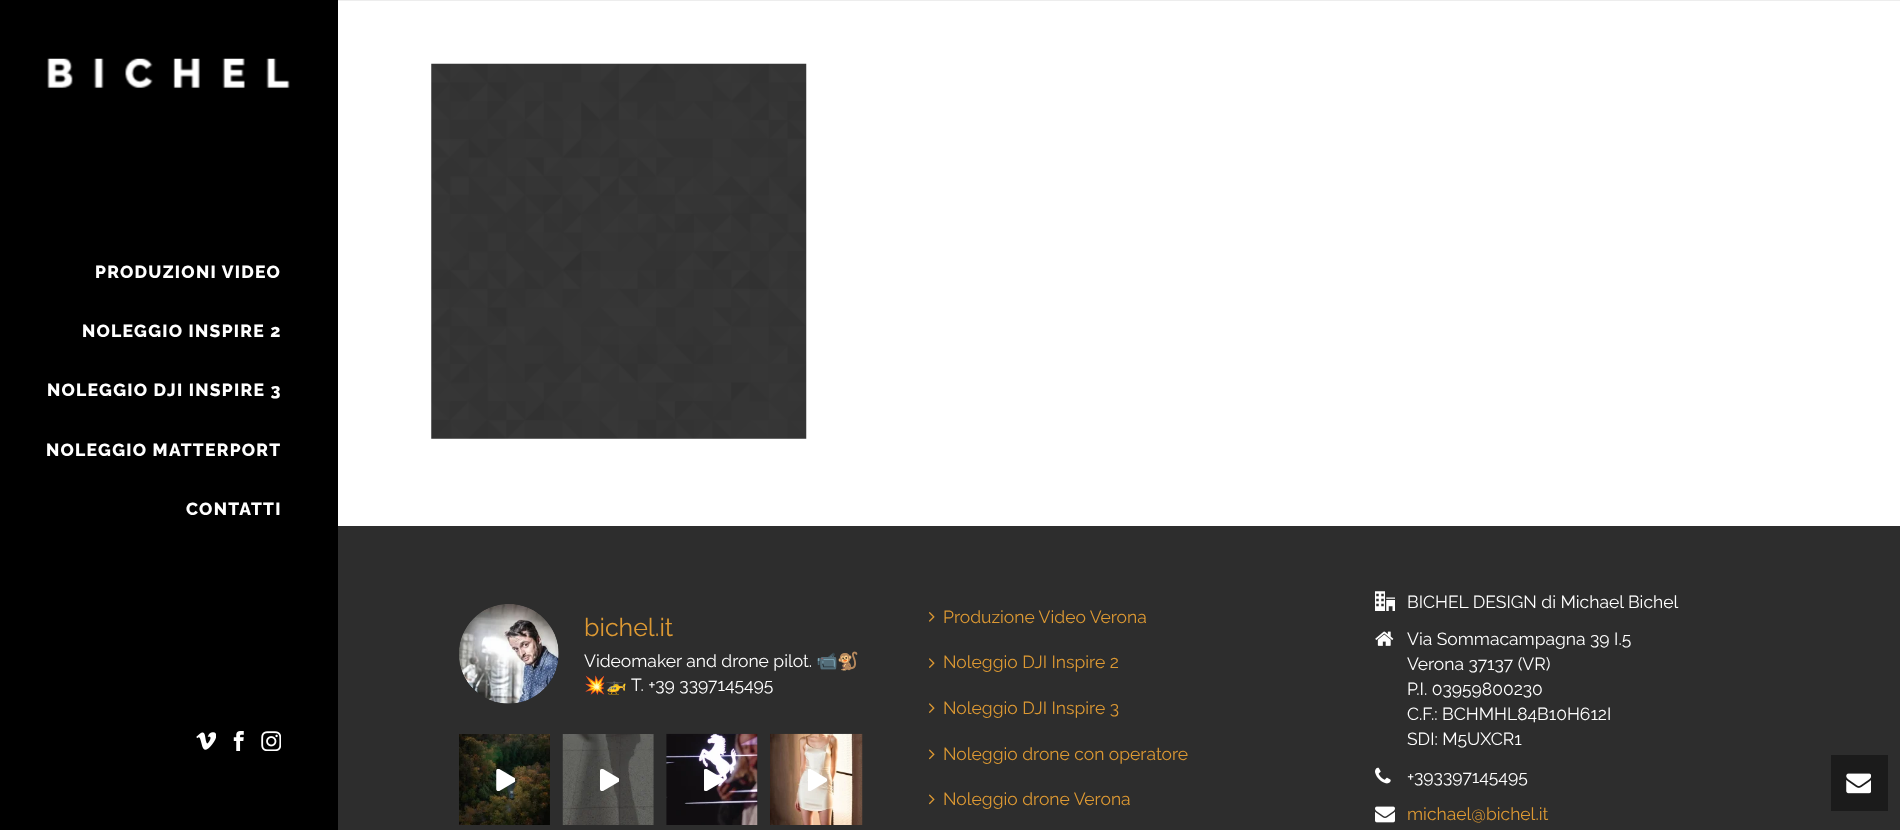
(async () => {
  const canvas = document.querySelector("canvas");
  canvas.width = 1900;
  canvas.height = 830;
  const ctx = canvas.getContext("2d");
  ctx.miterLimit = 4;
  ctx.fontKerning = "normal";
  async function loadImage(src) {
    const img = new Image();
    img.src = src;
    await img.decode();
    return img;
  }

  ctx.fillStyle = "#ffffff";
  ctx.fillRect(0, 0, 1900, 830);
  ctx.fillStyle = "#ededed";
  ctx.fillRect(338, 0, 1562, 1);
  ctx.fillStyle = "#000000";
  ctx.fillRect(0, 0, 338, 830);
  ctx.drawImage(await loadImage("img/1.png"), 47, 58, 243, 30);
  ctx.drawImage(await loadImage("img/2.png"), 196, 732, 20, 18);
  ctx.drawImage(await loadImage("img/3.png"), 233, 731, 11, 20);
  ctx.drawImage(await loadImage("img/4.png"), 261, 731, 20, 20);
  ctx.drawImage(await loadImage("img/5.png"), 431, 63, 376, 376);
  ctx.fillStyle = "#2d2d2d";
  ctx.fillRect(338, 526, 1562, 304);
  ctx.drawImage(await loadImage("img/6.png"), 459, 604, 100, 100);
  ctx.drawImage(await loadImage("img/7.png"), 459, 734, 91, 91);
  ctx.drawImage(await loadImage("img/8.png"), 496, 769, 19, 22);
  ctx.drawImage(await loadImage("img/9.png"), 562, 734, 92, 91);
  ctx.drawImage(await loadImage("img/10.png"), 600, 769, 19, 22);
  ctx.drawImage(await loadImage("img/11.png"), 666, 733, 92, 92);
  ctx.drawImage(await loadImage("img/12.png"), 704, 769, 19, 22);
  ctx.drawImage(await loadImage("img/13.png"), 770, 733, 93, 92);
  ctx.drawImage(await loadImage("img/14.png"), 808, 769, 20, 22);
  ctx.drawImage(await loadImage("img/15.png"), 929, 612, 6, 10);
  ctx.drawImage(await loadImage("img/16.png"), 929, 658, 6, 10);
  ctx.drawImage(await loadImage("img/16.png"), 929, 703, 6, 10);
  ctx.drawImage(await loadImage("img/17.png"), 929, 749, 6, 11);
  ctx.drawImage(await loadImage("img/17.png"), 929, 794, 6, 11);
  ctx.drawImage(await loadImage("img/18.png"), 1375, 591, 20, 20);
  ctx.drawImage(await loadImage("img/19.png"), 1375, 631, 19, 15);
  ctx.drawImage(await loadImage("img/20.png"), 1375, 767, 16, 17);
  ctx.drawImage(await loadImage("img/21.png"), 1375, 806, 20, 17);
  ctx.fillStyle = "#1b1b1b";
  ctx.fillRect(1831, 755, 57, 56);
  ctx.drawImage(await loadImage("img/22.png"), 1846, 773, 25, 21);
  ctx.letterSpacing = "1.25px";
  ctx.font = "800 17.5px Raleway";
  ctx.fillStyle = "#ffffff";
  for (const [text, x, y] of [
    ["PRODUZIONI VIDEO", 95, 278],
    ["NOLEGGIO INSPIRE 2", 82, 337],
    ["NOLEGGIO DJI INSPIRE 3", 47, 396],
    ["NOLEGGIO MATTERPORT", 46, 456],
    ["CONTATTI", 186, 515],
  ]) {
    ctx.fillText(text, x, y);
  }
  ctx.letterSpacing = "0px";
  ctx.font = "25px Raleway";
  ctx.fillStyle = "#dd9933";
  ctx.fillText("bichel.it", 584, 636);
  ctx.font = "17.5px Raleway";
  ctx.fillStyle = "#ffffff";
  ctx.fillText("Videomaker and drone pilot.", 584, 667);
  ctx.font = "17.5px Noto Color Emoji";
  ctx.fillText("📹🐒", 816, 667);
  ctx.fillText("💥🚁", 584, 691);
  ctx.font = "17.5px Raleway";
  ctx.fillText("T. +39 3397145495", 631, 691);
  ctx.fillStyle = "#dd9933";
  for (const [text, x, y] of [
    ["Produzione Video Verona", 943, 623],
    ["Noleggio DJI Inspire 2", 943, 668],
    ["Noleggio DJI Inspire 3", 943, 714],
    ["Noleggio drone con operatore", 943, 760],
    ["Noleggio drone Verona", 943, 805],
  ]) {
    ctx.fillText(text, x, y);
  }
  ctx.fillStyle = "#ffffff";
  for (const [text, x, y] of [
    ["BICHEL DESIGN di Michael Bichel", 1407, 608],
    ["Via Sommacampagna 39 I.5", 1407, 645],
    ["Verona 37137 (VR)", 1407, 670],
    ["P.I. 03959800230", 1407, 695],
    ["C.F.: BCHMHL84B10H612I", 1407, 720],
    ["SDI: M5UXCR1", 1407, 745],
    ["+393397145495", 1407, 783],
  ]) {
    ctx.fillText(text, x, y);
  }
  ctx.fillStyle = "#dd9933";
  ctx.fillText("michael@bichel.it", 1407, 820);
})();
